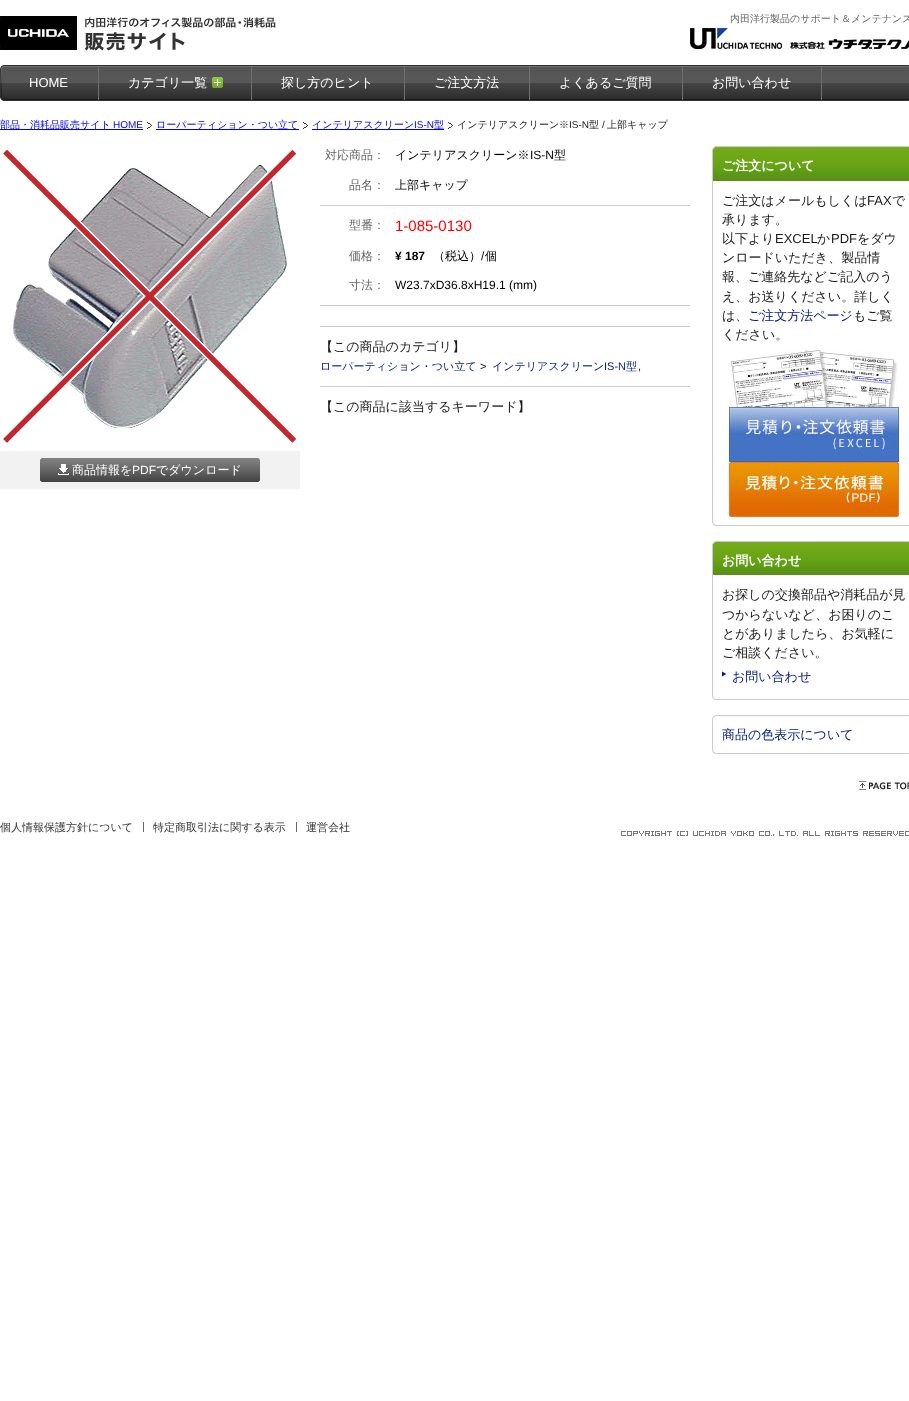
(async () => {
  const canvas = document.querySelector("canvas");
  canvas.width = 909;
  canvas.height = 1401;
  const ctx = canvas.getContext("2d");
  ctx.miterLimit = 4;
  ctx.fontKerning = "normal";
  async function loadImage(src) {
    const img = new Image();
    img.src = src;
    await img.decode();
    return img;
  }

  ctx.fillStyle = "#ffffff";
  ctx.fillRect(0, 0, 909, 1401);
  ctx.drawImage(await loadImage("img/1.png"), 0, 16, 276, 35);
  ctx.drawImage(await loadImage("img/2.png"), 690, 28, 219, 21);
  ctx.drawImage(await loadImage("img/3.png"), 0, 65, 908, 36);
  ctx.drawImage(await loadImage("img/4.png"), 908, 65, 1, 36);
  ctx.fillStyle = "#707070";
  ctx.fillRect(98, 67, 1, 33);
  ctx.fillRect(251, 67, 1, 33);
  ctx.drawImage(await loadImage("img/5.png"), 212, 77, 11, 11);
  for (const [x, y, w, h, color] of [
    [404, 67, 1, 33, "#707070"],
    [529, 67, 1, 33, "#707070"],
    [682, 67, 1, 33, "#707070"],
    [821, 67, 1, 33, "#707070"],
    [0, 129, 143, 1, "#0000ee"],
  ]) {
    ctx.fillStyle = color;
    ctx.fillRect(x, y, w, h);
  }
  ctx.drawImage(await loadImage("img/6.png"), 147, 122, 5, 7);
  ctx.fillRect(156, 129, 143, 1);
  ctx.drawImage(await loadImage("img/6.png"), 303, 122, 5, 7);
  ctx.fillRect(312, 129, 132, 1);
  ctx.drawImage(await loadImage("img/6.png"), 448, 122, 5, 7);
  for (const [x, y, w, h, color] of [
    [320, 205, 370, 1, "#cccccc"],
    [320, 305, 370, 1, "#cccccc"],
    [320, 326, 370, 1, "#cccccc"],
    [320, 386, 370, 1, "#cccccc"],
  ]) {
    ctx.fillStyle = color;
    ctx.fillRect(x, y, w, h);
  }
  ctx.drawImage(await loadImage("img/8.png"), 10, 162, 278, 269);
  ctx.drawImage(await loadImage("img/7.png"), 3, 149, 294, 294);
  ctx.fillStyle = "#f2f2f2";
  ctx.fillRect(0, 451, 300, 38);
  ctx.drawImage(await loadImage("img/9.png"), 40, 458, 218, 24);
  ctx.drawImage(await loadImage("img/10.png"), 258, 458, 2, 24);
  ctx.drawImage(await loadImage("img/11.png"), 58, 464, 11, 11);
  ctx.drawImage(await loadImage("img/12.png"), 712, 522, 197, 4);
  ctx.drawImage(await loadImage("img/13.png"), 712, 146, 197, 35);
  ctx.fillStyle = "#cccccc";
  ctx.fillRect(712, 181, 1, 341);
  ctx.drawImage(await loadImage("img/14.png"), 731, 349, 167, 58);
  ctx.drawImage(await loadImage("img/15.png"), 729, 407, 170, 55);
  ctx.drawImage(await loadImage("img/16.png"), 729, 462, 170, 55);
  ctx.drawImage(await loadImage("img/12.png"), 712, 696, 197, 4);
  ctx.drawImage(await loadImage("img/17.png"), 712, 541, 197, 34);
  ctx.fillRect(712, 575, 1, 121);
  ctx.drawImage(await loadImage("img/18.png"), 722, 671, 4, 6);
  ctx.drawImage(await loadImage("img/12.png"), 712, 750, 197, 4);
  ctx.drawImage(await loadImage("img/19.png"), 712, 715, 197, 35);
  ctx.drawImage(await loadImage("img/20.png"), 859, 781, 50, 9);
  ctx.fillStyle = "#666666";
  ctx.fillRect(143, 822, 1, 10);
  ctx.fillRect(296, 822, 1, 10);
  ctx.drawImage(await loadImage("img/21.png"), 621, 831, 288, 5);
  ctx.font = "500 10px WenQuanYi Zen Hei";
  ctx.fillText("内田洋行製品のサポート＆メンテナンス", 730, 22);
  ctx.font = "13px Liberation Sans";
  ctx.fillStyle = "#ffffff";
  ctx.fillText("HOME", 29, 87);
  ctx.font = "500 13px WenQuanYi Zen Hei";
  for (const [text, x, y] of [
    ["カテゴリ一覧", 128, 87],
    ["探し方のヒント", 281, 87],
    ["ご注文方法", 434, 87],
    ["よくあるご質問", 559, 87],
    ["お問い合わせ", 712, 87],
  ]) {
    ctx.fillText(text, x, y);
  }
  ctx.font = "500 10px WenQuanYi Zen Hei";
  ctx.fillStyle = "#0000ee";
  ctx.fillText("部品・消耗品販売サイト", 0, 128);
  ctx.font = "10px Liberation Sans";
  ctx.fillText("HOME", 113, 128);
  ctx.font = "500 10px WenQuanYi Zen Hei";
  ctx.fillText("ローパーティション・つい立て", 156, 128);
  ctx.fillText("インテリアスクリーン", 312, 128);
  ctx.font = "10px Liberation Sans";
  ctx.fillText("IS-N", 414, 128);
  ctx.font = "500 10px WenQuanYi Zen Hei";
  ctx.fillText("型", 434, 128);
  ctx.fillStyle = "#1a1a1a";
  ctx.fillText("インテリアスクリーン※", 457, 128);
  ctx.font = "10px Liberation Sans";
  ctx.fillText("IS-N", 569, 128);
  ctx.font = "500 10px WenQuanYi Zen Hei";
  ctx.fillText("型", 589, 128);
  ctx.font = "10px Liberation Sans";
  ctx.fillText("/", 602, 128);
  ctx.font = "500 10px WenQuanYi Zen Hei";
  ctx.fillText("上部キャップ", 607, 128);
  ctx.font = "500 12px WenQuanYi Zen Hei";
  ctx.fillStyle = "#666666";
  ctx.fillText("対応商品：", 325, 159);
  ctx.fillStyle = "#000000";
  ctx.fillText("インテリアスクリーン※", 395, 159);
  ctx.font = "12px Liberation Sans";
  ctx.fillText("IS-N", 530, 159);
  ctx.font = "500 12px WenQuanYi Zen Hei";
  ctx.fillText("型", 554, 159);
  ctx.fillStyle = "#666666";
  ctx.fillText("品名：", 349, 189);
  ctx.fillStyle = "#000000";
  ctx.fillText("上部キャップ", 395, 189);
  ctx.fillStyle = "#666666";
  ctx.fillText("型番：", 349, 229);
  ctx.font = "15px Liberation Sans";
  ctx.fillStyle = "#ff0000";
  ctx.fillText("1-085-0130", 395, 231);
  ctx.font = "500 12px WenQuanYi Zen Hei";
  ctx.fillStyle = "#666666";
  ctx.fillText("価格：", 349, 260);
  ctx.font = "bold 12px Liberation Sans";
  ctx.fillStyle = "#000000";
  ctx.fillText("¥ 187", 395, 260);
  ctx.font = "500 12px WenQuanYi Zen Hei";
  ctx.fillText("（税込）", 433, 260);
  ctx.font = "12px Liberation Sans";
  ctx.fillText("/", 481, 260);
  ctx.font = "500 12px WenQuanYi Zen Hei";
  ctx.fillText("個", 485, 260);
  ctx.fillStyle = "#666666";
  ctx.fillText("寸法：", 349, 289);
  ctx.font = "12px Liberation Sans";
  ctx.fillStyle = "#000000";
  ctx.fillText("W23.7xD36.8xH19.1 (mm)", 395, 289);
  ctx.font = "500 13px WenQuanYi Zen Hei";
  ctx.fillStyle = "#1a1a1a";
  ctx.fillText("【この商品のカテゴリ】", 320, 351);
  ctx.font = "500 11px WenQuanYi Zen Hei";
  ctx.fillStyle = "#001b80";
  ctx.fillText("ローパーティション・つい立て", 320, 370);
  ctx.font = "11px Liberation Sans";
  ctx.fillStyle = "#1a1a1a";
  ctx.fillText(">", 480, 370);
  ctx.font = "500 11px WenQuanYi Zen Hei";
  ctx.fillStyle = "#001b80";
  ctx.fillText("インテリアスクリーン", 492, 370);
  ctx.font = "11px Liberation Sans";
  ctx.fillText("IS-N", 604, 370);
  ctx.font = "500 11px WenQuanYi Zen Hei";
  ctx.fillText("型", 626, 370);
  ctx.font = "11px Liberation Sans";
  ctx.fillStyle = "#1a1a1a";
  ctx.fillText(",", 638, 370);
  ctx.font = "500 13px WenQuanYi Zen Hei";
  ctx.fillText("【この商品に該当するキーワード】", 320, 411);
  ctx.font = "500 12px WenQuanYi Zen Hei";
  ctx.fillStyle = "#ffffff";
  ctx.fillText("商品情報を", 72, 474);
  ctx.font = "12px Liberation Sans";
  ctx.fillText("PDF", 132, 474);
  ctx.font = "500 12px WenQuanYi Zen Hei";
  ctx.fillText("でダウンロード", 156, 474);
  ctx.font = "bold 13px WenQuanYi Zen Hei";
  ctx.fillText("ご注文について", 722, 170);
  ctx.font = "500 13px WenQuanYi Zen Hei";
  ctx.fillStyle = "#1a1a1a";
  ctx.fillText("ご注文はメールもしくは", 722, 205);
  ctx.font = "13px Liberation Sans";
  ctx.fillText("FAX", 867, 205);
  ctx.font = "500 13px WenQuanYi Zen Hei";
  for (const [text, x, y] of [
    ["で", 892, 205],
    ["承ります。", 722, 224],
    ["以下より", 722, 243],
  ]) {
    ctx.fillText(text, x, y);
  }
  ctx.font = "13px Liberation Sans";
  ctx.fillText("EXCEL", 775, 243);
  ctx.font = "500 13px WenQuanYi Zen Hei";
  ctx.fillText("か", 817, 243);
  ctx.font = "13px Liberation Sans";
  ctx.fillText("PDF", 831, 243);
  ctx.font = "500 13px WenQuanYi Zen Hei";
  for (const [text, x, y] of [
    ["をダウ", 857, 243],
    ["ンロードいただき、製品情", 722, 262],
    ["報、ご連絡先などご記入のう", 722, 281],
    ["え、お送りください。詳しく", 722, 301],
    ["は、", 722, 320],
  ]) {
    ctx.fillText(text, x, y);
  }
  ctx.fillStyle = "#001b80";
  ctx.fillText("ご注文方法ページ", 748, 320);
  ctx.fillStyle = "#1a1a1a";
  ctx.fillText("もご覧", 853, 320);
  ctx.fillText("ください。", 722, 339);
  ctx.font = "bold 13px WenQuanYi Zen Hei";
  ctx.fillStyle = "#ffffff";
  ctx.fillText("お問い合わせ", 722, 565);
  ctx.font = "500 13px WenQuanYi Zen Hei";
  ctx.fillStyle = "#1a1a1a";
  for (const [text, x, y] of [
    ["お探しの交換部品や消耗品が見", 722, 599],
    ["つからないなど、お困りのこ", 722, 619],
    ["とがありましたら、お気軽に", 722, 638],
    ["ご相談ください。", 722, 657],
  ]) {
    ctx.fillText(text, x, y);
  }
  ctx.fillStyle = "#001b80";
  ctx.fillText("お問い合わせ", 732, 681);
  ctx.fillText("商品の色表示について", 722, 739);
  ctx.font = "500 11px WenQuanYi Zen Hei";
  ctx.fillStyle = "#333333";
  for (const [text, x, y] of [
    ["個人情報保護方針について", 0, 831],
    ["特定商取引法に関する表示", 153, 831],
    ["運営会社", 306, 831],
  ]) {
    ctx.fillText(text, x, y);
  }
})();
